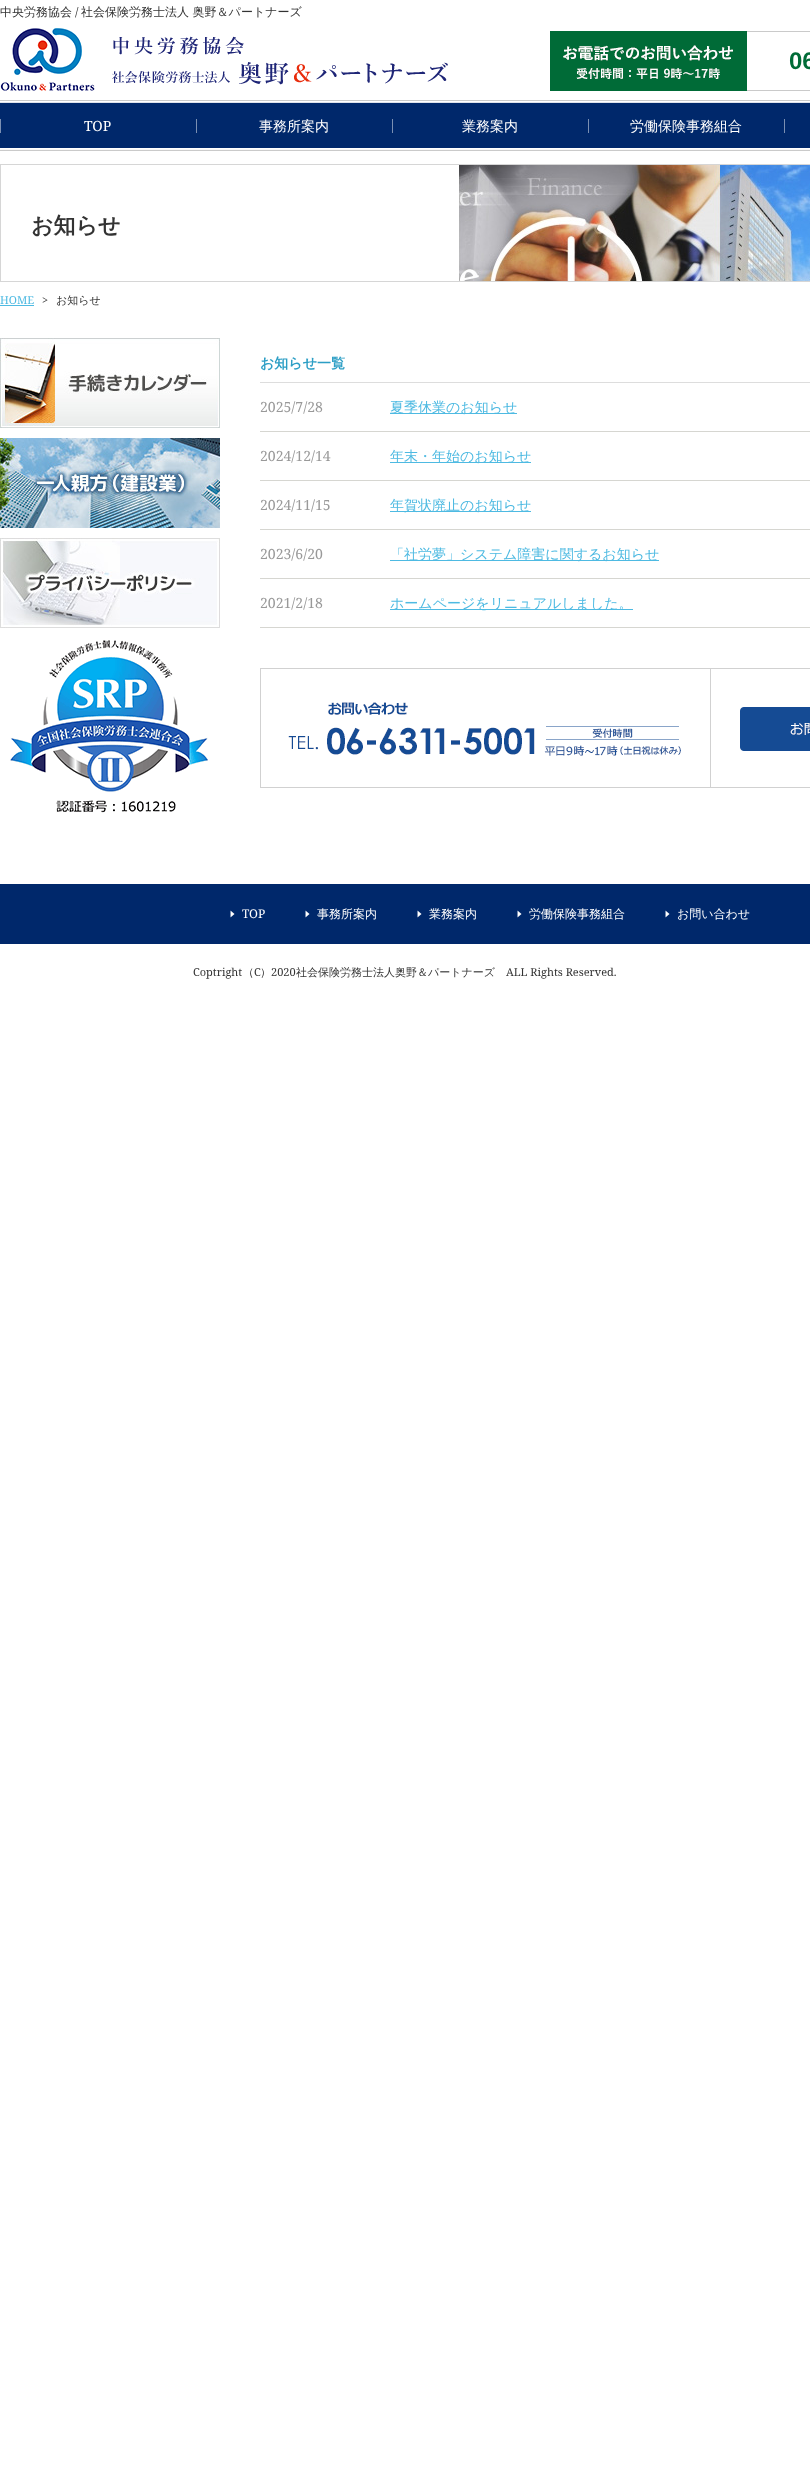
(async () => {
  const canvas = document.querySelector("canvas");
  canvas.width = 810;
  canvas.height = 2485;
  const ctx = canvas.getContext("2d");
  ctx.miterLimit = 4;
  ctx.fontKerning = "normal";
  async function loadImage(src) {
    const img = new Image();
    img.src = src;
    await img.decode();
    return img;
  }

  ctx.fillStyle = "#ffffff";
  ctx.fillRect(0, 0, 810, 2485);
  ctx.drawImage(await loadImage("img/1.png"), 0, 100, 810, 51);
  ctx.drawImage(await loadImage("img/2.png"), 0, 28, 448, 63);
  ctx.drawImage(await loadImage("img/3.png"), 550, 31, 260, 60);
  for (const [x, y, w, h, color] of [
    [0, 119, 1, 14, "#7a8fb2"],
    [196, 119, 1, 14, "#7a8fb2"],
    [392, 119, 1, 14, "#7a8fb2"],
    [588, 119, 1, 14, "#7a8fb2"],
    [784, 119, 1, 14, "#7a8fb2"],
  ]) {
    ctx.fillStyle = color;
    ctx.fillRect(x, y, w, h);
  }
  ctx.drawImage(await loadImage("img/4.png"), 459, 165, 351, 116);
  ctx.strokeStyle = "#d6d6d6";
  ctx.strokeRect(0.5, 164.5, 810, 117);
  ctx.fillStyle = "#4ebae2";
  ctx.fillRect(0, 305, 34, 1);
  ctx.drawImage(await loadImage("img/5.png"), 0, 338, 220, 90);
  ctx.drawImage(await loadImage("img/6.png"), 0, 438, 220, 90);
  ctx.drawImage(await loadImage("img/7.png"), 0, 538, 220, 90);
  ctx.drawImage(await loadImage("img/8.png"), 10, 640, 198, 173);
  for (const [x, y, w, h, color] of [
    [260, 382, 550, 1, "#dddddd"],
    [260, 431, 550, 1, "#d6d6d1"],
    [390, 413, 127, 1, "#4ebae2"],
    [260, 480, 550, 1, "#d6d6d1"],
    [390, 462, 141, 1, "#4ebae2"],
    [260, 529, 550, 1, "#d6d6d1"],
    [390, 511, 141, 1, "#4ebae2"],
    [260, 578, 550, 1, "#d6d6d1"],
    [390, 560, 269, 1, "#4ebae2"],
    [260, 627, 550, 1, "#d6d6d1"],
    [390, 609, 243, 1, "#4ebae2"],
  ]) {
    ctx.fillStyle = color;
    ctx.fillRect(x, y, w, h);
  }
  ctx.drawImage(await loadImage("img/9.png"), 260, 668, 550, 120);
  ctx.fillStyle = "#00286b";
  ctx.fillRect(0, 884, 810, 60);
  ctx.drawImage(await loadImage("img/10.png"), 230, 910, 5, 8);
  ctx.drawImage(await loadImage("img/10.png"), 305, 910, 5, 8);
  ctx.drawImage(await loadImage("img/10.png"), 417, 910, 5, 8);
  ctx.drawImage(await loadImage("img/10.png"), 517, 910, 5, 8);
  ctx.drawImage(await loadImage("img/10.png"), 665, 910, 5, 8);
  ctx.font = "500 12px WenQuanYi Zen Hei";
  ctx.fillStyle = "#333333";
  ctx.fillText("中央労務協会", 0, 16);
  ctx.font = "12px Noto Serif";
  ctx.fillText("/", 75, 16);
  ctx.font = "500 12px WenQuanYi Zen Hei";
  ctx.fillText("社会保険労務士法人 奥野＆パートナーズ", 81, 16);
  ctx.font = "bold 24px Liberation Sans";
  ctx.fillStyle = "#006b37";
  ctx.fillText("06", 789, 69);
  ctx.font = "14px Noto Serif";
  ctx.fillStyle = "#ffffff";
  ctx.fillText("TOP", 84, 131);
  ctx.font = "500 14px WenQuanYi Zen Hei";
  for (const [text, x, y] of [
    ["事務所案内", 259, 131],
    ["業務案内", 462, 131],
    ["労働保険事務組合", 630, 131],
  ]) {
    ctx.fillText(text, x, y);
  }
  ctx.font = "bold 22px WenQuanYi Zen Hei";
  ctx.fillStyle = "#333333";
  ctx.fillText("お知らせ", 31, 233);
  ctx.font = "11px Noto Serif";
  ctx.fillStyle = "#4ebae2";
  ctx.fillText("HOME", 0, 304);
  ctx.fillStyle = "#333333";
  ctx.fillText(">", 42, 304);
  ctx.font = "500 11px WenQuanYi Zen Hei";
  ctx.fillText("お知らせ", 56, 304);
  ctx.font = "bold 14px WenQuanYi Zen Hei";
  ctx.fillStyle = "#2c9ec5";
  ctx.fillText("お知らせ一覧", 260, 368);
  ctx.font = "14px Noto Serif";
  ctx.fillStyle = "#999999";
  ctx.fillText("2025/7/28", 260, 412);
  ctx.font = "500 14px WenQuanYi Zen Hei";
  ctx.fillStyle = "#4ebae2";
  ctx.fillText("夏季休業のお知らせ", 390, 412);
  ctx.font = "14px Noto Serif";
  ctx.fillStyle = "#999999";
  ctx.fillText("2024/12/14", 260, 461);
  ctx.font = "500 14px WenQuanYi Zen Hei";
  ctx.fillStyle = "#4ebae2";
  ctx.fillText("年末・年始のお知らせ", 390, 461);
  ctx.font = "14px Noto Serif";
  ctx.fillStyle = "#999999";
  ctx.fillText("2024/11/15", 260, 510);
  ctx.font = "500 14px WenQuanYi Zen Hei";
  ctx.fillStyle = "#4ebae2";
  ctx.fillText("年賀状廃止のお知らせ", 390, 510);
  ctx.font = "14px Noto Serif";
  ctx.fillStyle = "#999999";
  ctx.fillText("2023/6/20", 260, 559);
  ctx.font = "500 14px WenQuanYi Zen Hei";
  ctx.fillStyle = "#4ebae2";
  ctx.fillText("「社労夢」システム障害に関するお知らせ", 390, 559);
  ctx.font = "14px Noto Serif";
  ctx.fillStyle = "#999999";
  ctx.fillText("2021/2/18", 260, 608);
  ctx.font = "500 14px WenQuanYi Zen Hei";
  ctx.fillStyle = "#4ebae2";
  ctx.fillText("ホームページをリニュアルしました。", 390, 608);
  ctx.font = "12px Noto Serif";
  ctx.fillStyle = "#ffffff";
  ctx.fillText("TOP", 242, 918);
  ctx.font = "500 12px WenQuanYi Zen Hei";
  for (const [text, x, y] of [
    ["事務所案内", 317, 918],
    ["業務案内", 429, 918],
    ["労働保険事務組合", 529, 918],
    ["お問い合わせ", 677, 918],
  ]) {
    ctx.fillText(text, x, y);
  }
  ctx.font = "11px Noto Serif";
  ctx.fillStyle = "#333333";
  ctx.fillText("Coptright", 193, 976);
  ctx.font = "500 11px WenQuanYi Zen Hei";
  ctx.fillText("（", 243, 976);
  ctx.font = "11px Noto Serif";
  ctx.fillText("C", 254, 976);
  ctx.font = "500 11px WenQuanYi Zen Hei";
  ctx.fillText("）", 260, 976);
  ctx.font = "11px Noto Serif";
  ctx.fillText("2020", 271, 976);
  ctx.font = "500 11px WenQuanYi Zen Hei";
  ctx.fillText("社会保険労務士法人奥野＆パートナーズ", 296, 976);
  ctx.font = "11px Noto Serif";
  ctx.fillText("ALL Rights Reserved.", 506, 976);
})();
